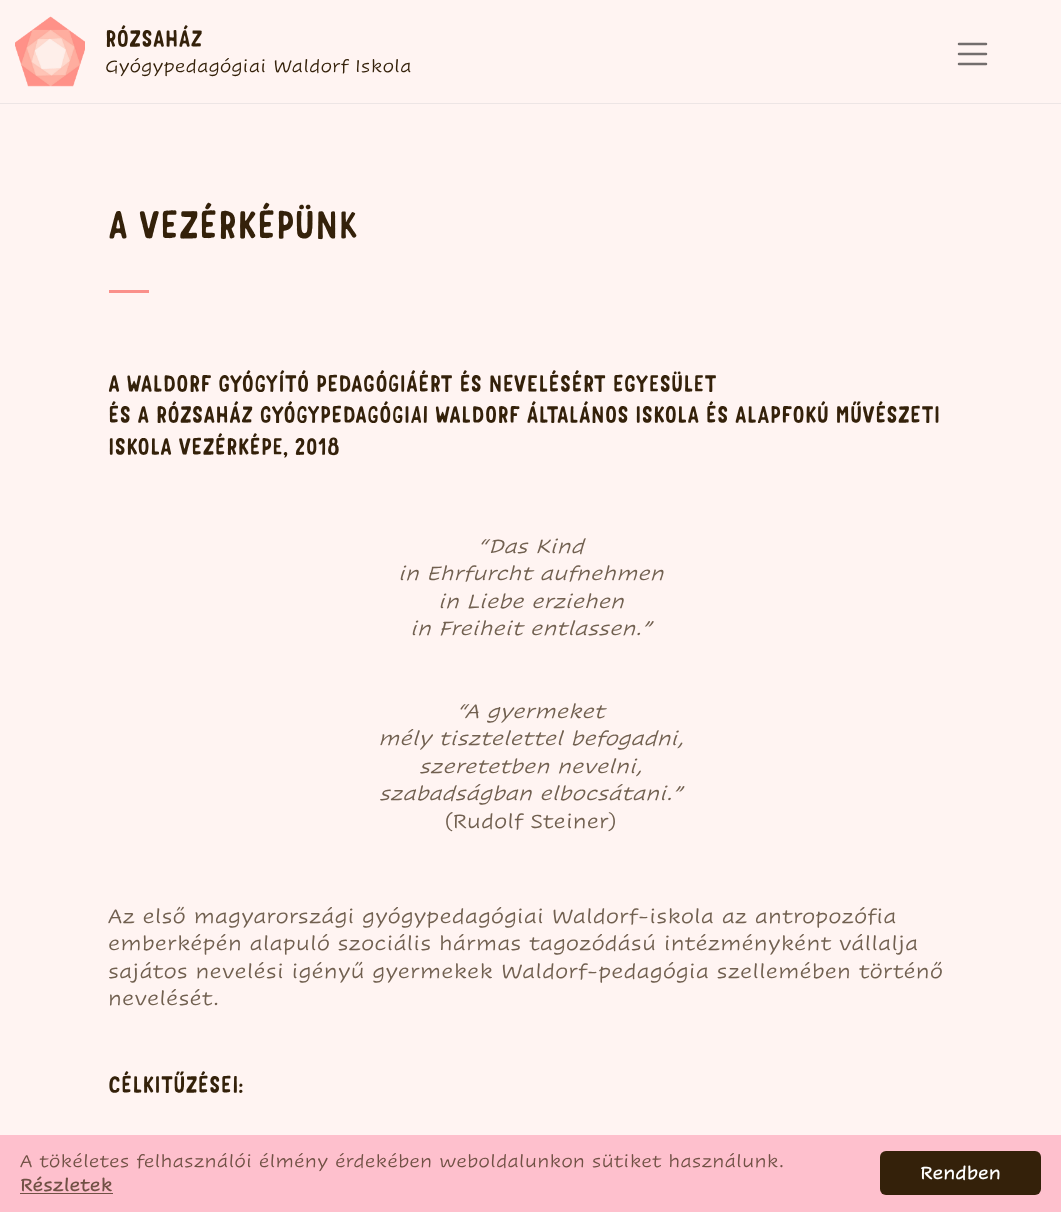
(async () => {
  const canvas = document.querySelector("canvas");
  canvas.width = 1061;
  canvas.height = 1212;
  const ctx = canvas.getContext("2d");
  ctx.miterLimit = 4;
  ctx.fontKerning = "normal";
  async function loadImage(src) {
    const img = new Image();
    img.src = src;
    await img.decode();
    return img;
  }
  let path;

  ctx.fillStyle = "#fff4f2";
  ctx.fillRect(0, 0, 1061, 1212);
  ctx.fillStyle = "#ede5e5";
  ctx.fillRect(0, 103, 1061, 1);
  ctx.drawImage(await loadImage("img/1.png"), 15, 16, 70, 71);
  path = new Path2D("M959 44H986M959 54H986M959 64H986");
  ctx.strokeStyle = "#736e6d";
  ctx.lineWidth = 2.5;
  ctx.lineCap = "round";
  ctx.stroke(path);
  for (const [x, y, w, h, color] of [
    [109, 290, 40, 3, "#fa908b"],
    [0, 1135, 1061, 77, "#fec0cd"],
    [20, 1193, 93, 1, "#715145"],
  ]) {
    ctx.fillStyle = color;
    ctx.fillRect(x, y, w, h);
  }
  ctx.fillStyle = "#34210a";
  ctx.beginPath();
  ctx.roundRect(880, 1151, 161, 44, 6);
  ctx.fill();
  ctx.font = "22.8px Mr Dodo";
  ctx.fillText("RÓZSAHÁZ", 105, 47);
  ctx.font = "17.5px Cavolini";
  ctx.fillText("Gyógypedagógiai Waldorf Iskola", 105, 72);
  ctx.font = "38px Mr Dodo";
  ctx.fillText("A VEZÉRKÉPÜNK", 108, 239);
  ctx.font = "22.8px Mr Dodo";
  for (const [text, x, y] of [
    ["A WALDORF GYÓGYÍTÓ PEDAGÓGIÁÉRT ÉS NEVELÉSÉRT EGYESÜLET", 108, 392],
    ["ÉS A RÓZSAHÁZ GYÓGYPEDAGÓGIAI WALDORF ÁLTALÁNOS ISKOLA ÉS ALAPFOKÚ MŰVÉSZETI", 108, 423],
    ["ISKOLA VEZÉRKÉPE, 2018", 108, 455],
  ]) {
    ctx.fillText(text, x, y);
  }
  ctx.font = "italic 20px Cavolini";
  ctx.fillStyle = "#716050";
  for (const [text, x, y] of [
    ["“Das Kind", 478, 553],
    ["in Ehrfurcht aufnehmen", 398, 580],
    ["in Liebe erziehen", 438, 608],
    ["in Freiheit entlassen.”", 410, 635],
    ["“A gyermeket", 457, 718],
    ["mély tisztelettel befogadni,", 378, 745],
    ["szeretetben nevelni,", 419, 773],
    ["szabadságban elbocsátani.”", 379, 800],
  ]) {
    ctx.fillText(text, x, y);
  }
  ctx.font = "20px Cavolini";
  for (const [text, x, y] of [
    ["(Rudolf Steiner)", 445, 828],
    ["Az első magyarországi gyógypedagógiai Waldorf-iskola az antropozófia", 108, 923],
    ["emberképén alapuló szociális hármas tagozódású intézményként vállalja", 108, 950],
    ["sajátos nevelési igényű gyermekek Waldorf-pedagógia szellemében történő", 108, 978],
    ["nevelését.", 108, 1005],
  ]) {
    ctx.fillText(text, x, y);
  }
  ctx.font = "22.8px Mr Dodo";
  ctx.fillStyle = "#34210a";
  ctx.fillText("CÉLKITŰZÉSEI:", 108, 1093);
  ctx.font = "17.5px Cavolini";
  ctx.fillStyle = "#715145";
  ctx.fillText("A tökéletes felhasználói élmény érdekében weboldalunkon sütiket használunk.", 20, 1167);
  ctx.font = "bold 17.5px Cavolini";
  ctx.fillText("Részletek", 20, 1191);
  ctx.fillStyle = "#ffffff";
  ctx.fillText("Rendben", 920, 1179);
})();
